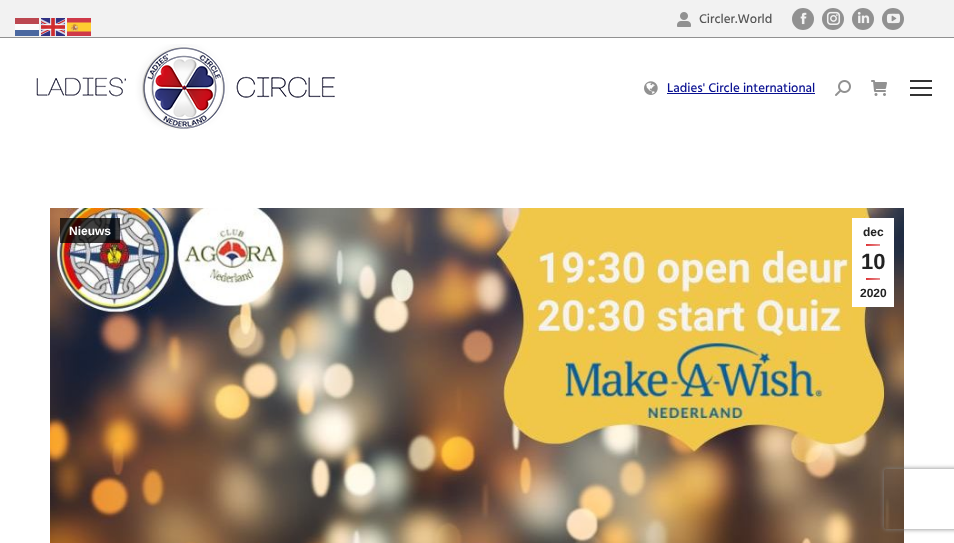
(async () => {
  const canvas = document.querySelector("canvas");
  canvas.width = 954;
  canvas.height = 543;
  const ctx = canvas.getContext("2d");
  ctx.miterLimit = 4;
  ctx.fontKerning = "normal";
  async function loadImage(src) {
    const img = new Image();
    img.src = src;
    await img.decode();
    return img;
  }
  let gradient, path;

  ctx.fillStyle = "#ffffff";
  ctx.fillRect(0, 0, 954, 543);
  ctx.fillStyle = "#f2f2f2";
  ctx.fillRect(0, 0, 954, 37);
  ctx.fillStyle = "#bc4750";
  ctx.fillRect(15, 18, 24, 6);
  ctx.drawImage(await loadImage("img/1.png"), 41, 18, 24, 18);
  ctx.drawImage(await loadImage("img/2.png"), 67, 18, 24, 18);
  ctx.fillStyle = "#fcfcfc";
  ctx.fillRect(15, 24, 24, 6);
  ctx.fillStyle = "#4b68a0";
  ctx.fillRect(15, 30, 24, 6);
  ctx.drawImage(await loadImage("img/3.png"), 677, 12, 14, 15);
  ctx.fillStyle = "#919191";
  ctx.beginPath();
  ctx.arc(803, 19, 11, 0, Math.PI * 2);
  ctx.fill();
  ctx.drawImage(await loadImage("img/4.png"), 800, 12, 7, 13);
  ctx.beginPath();
  ctx.arc(833, 19, 11, 0, Math.PI * 2);
  ctx.fill();
  ctx.drawImage(await loadImage("img/5.png"), 826, 11, 15, 14);
  ctx.beginPath();
  ctx.arc(863, 19, 11, 0, Math.PI * 2);
  ctx.fill();
  ctx.drawImage(await loadImage("img/6.png"), 857, 12, 13, 12);
  ctx.beginPath();
  ctx.arc(893, 19, 11, 0, Math.PI * 2);
  ctx.fill();
  ctx.drawImage(await loadImage("img/7.png"), 886, 13, 15, 11);
  ctx.fillRect(0, 37, 954, 1);
  ctx.drawImage(await loadImage("img/8.png"), 36, 44, 299, 86);
  ctx.drawImage(await loadImage("img/9.png"), 644, 81, 14, 14);
  ctx.fillStyle = "#091091";
  ctx.fillRect(667, 93, 148, 1);
  ctx.drawImage(await loadImage("img/10.png"), 835, 80, 16, 16);
  ctx.drawImage(await loadImage("img/11.png"), 871, 80, 16, 16);
  for (const [x, y, w, h, color] of [
    [910, 80, 22, 2, "#333333"],
    [910, 87, 22, 2, "#333333"],
    [910, 94, 22, 2, "#333333"],
  ]) {
    ctx.fillStyle = color;
    ctx.fillRect(x, y, w, h);
  }
  ctx.drawImage(await loadImage("img/12.png"), 50, 208, 854, 335);
  ctx.fillStyle = "rgba(0, 0, 0, 0.75)";
  ctx.fillRect(60, 218, 60, 25);
  ctx.fillStyle = "#ffffff";
  ctx.fillRect(852, 218, 42, 89);
  gradient = ctx.createLinearGradient(869, 241, 877, 249);
  gradient.addColorStop(0, "#dd2f32");
  gradient.addColorStop(1, "#e9979a");
  ctx.fillStyle = gradient;
  ctx.fillRect(866, 244, 14, 2);
  gradient = ctx.createLinearGradient(869, 275, 877, 283);
  gradient.addColorStop(0, "#dd2f32");
  gradient.addColorStop(1, "#e9979a");
  ctx.fillStyle = gradient;
  ctx.fillRect(866, 278, 14, 2);
  ctx.save();
  path = new Path2D("M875 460H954V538H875ZM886 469H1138C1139 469 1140 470 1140 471V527C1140 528 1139 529 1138 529H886C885 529 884 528 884 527V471C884 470 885 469 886 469Z");
  ctx.clip(path, "evenodd");
  ctx.fillStyle = "#808080";
  ctx.filter = "blur(2.5px)";
  ctx.beginPath();
  ctx.roundRect(884, 469, 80, 60, 2);
  ctx.fill();
  ctx.filter = "none";
  ctx.restore();
  ctx.font = "500 13px Hind";
  ctx.fillStyle = "#565656";
  ctx.fillText("Circler.World", 699, 23);
  ctx.fillStyle = "#091091";
  ctx.fillText("Ladies' Circle international", 667, 92);
  ctx.font = "bold 12px Liberation Sans";
  ctx.fillStyle = "#ffffff";
  ctx.fillText("Nieuws", 69, 235);
  ctx.fillStyle = "#222222";
  ctx.fillText("dec", 863, 236);
  ctx.font = "bold 22px Liberation Sans";
  ctx.fillText("10", 861, 269);
  ctx.font = "bold 12px Liberation Sans";
  ctx.fillText("2020", 860, 297);
})();
